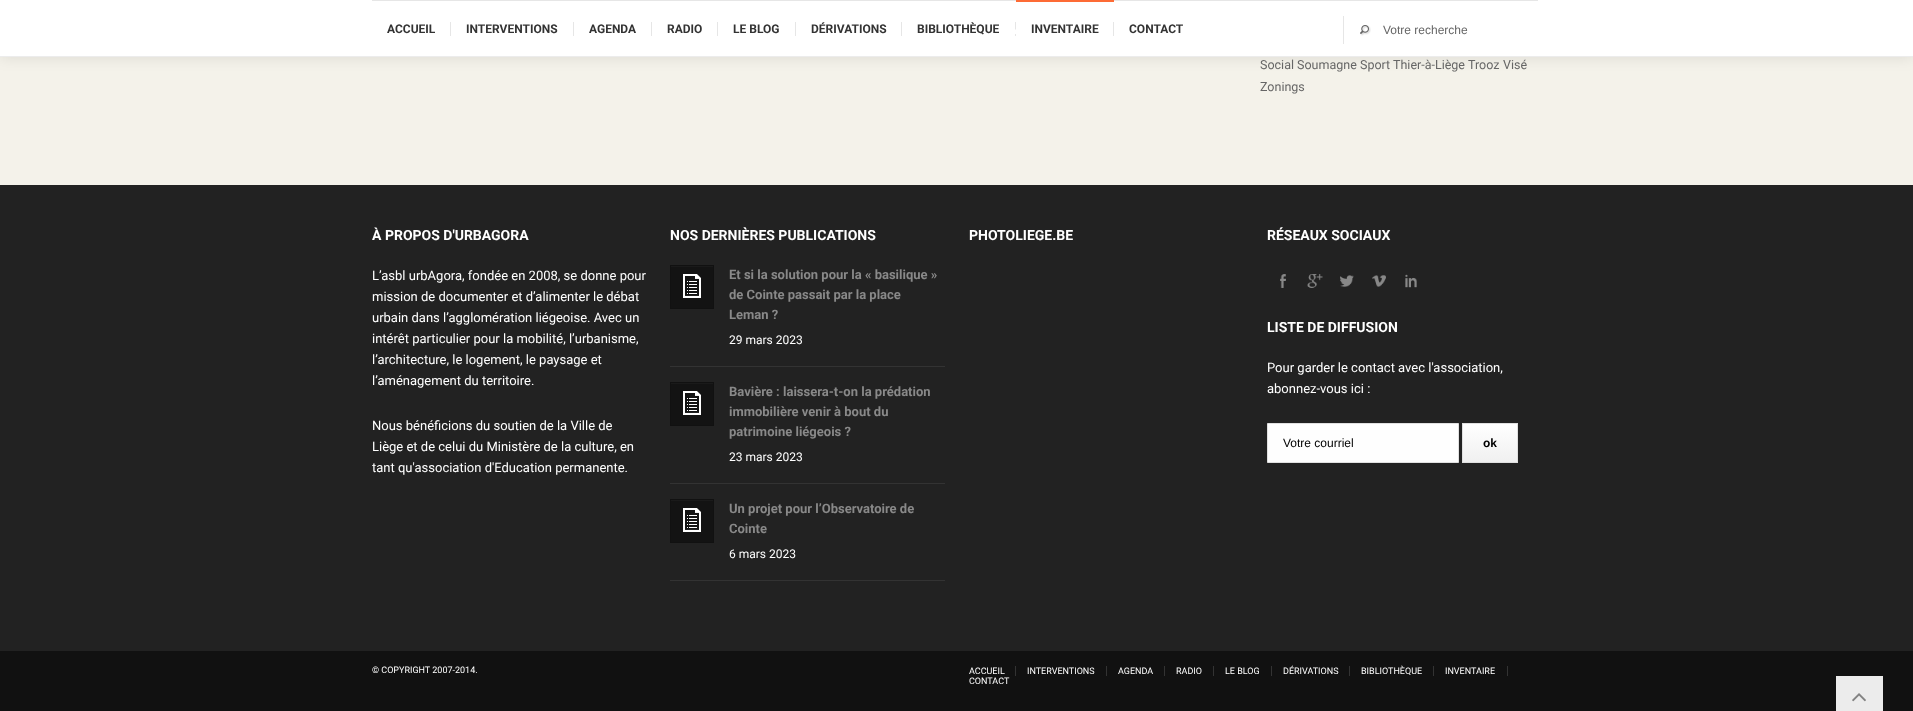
(async () => {
  const canvas = document.querySelector("canvas");
  canvas.width = 1913;
  canvas.height = 711;
  const ctx = canvas.getContext("2d");
  ctx.miterLimit = 4;
  ctx.fontKerning = "normal";
  async function loadImage(src) {
    const img = new Image();
    img.src = src;
    await img.decode();
    return img;
  }
  let gradient, path;

  ctx.fillStyle = "#f4f2ea";
  ctx.fillRect(0, 0, 1913, 711);
  ctx.fillStyle = "rgba(0, 0, 0, 0.1)";
  ctx.filter = "blur(7.5px)";
  ctx.beginPath();
  ctx.rect(0, -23, 1913, 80);
  ctx.fill();
  ctx.filter = "none";
  for (const [x, y, w, h, color] of [
    [0, 0, 1913, 56, "#ffffff"],
    [0, 56, 1913, 1, "#ececec"],
    [372, 0, 1166, 1, "#e6e6e6"],
    [450, 22, 1, 14, "#e6e6e6"],
    [573, 22, 1, 14, "#e6e6e6"],
    [651, 22, 1, 14, "#e6e6e6"],
    [717, 22, 1, 14, "#e6e6e6"],
    [795, 22, 1, 14, "#e6e6e6"],
    [901, 22, 1, 14, "#e6e6e6"],
    [1015, 22, 1, 14, "#e6e6e6"],
    [1016, 0, 98, 2, "#fd6b35"],
    [1113, 22, 1, 14, "#e6e6e6"],
  ]) {
    ctx.fillStyle = color;
    ctx.fillRect(x, y, w, h);
  }
  ctx.fillStyle = "#ffffff";
  path = new Path2D("M1020 34H1015V29Z");
  ctx.fill(path);
  ctx.fillStyle = "#e6e6e6";
  ctx.fillRect(1343, 16, 1, 28);
  ctx.drawImage(await loadImage("img/1.png"), 1360, 25, 11, 11);
  for (const [x, y, w, h, color] of [
    [0, 185, 1913, 466, "#222222"],
    [670, 366, 275, 1, "#333333"],
    [671, 267, 42, 41, "#131313"],
    [671, 266, 42, 1, "#1a1a1a"],
  ]) {
    ctx.fillStyle = color;
    ctx.fillRect(x, y, w, h);
  }
  ctx.strokeStyle = "#111111";
  ctx.strokeRect(670.5, 265.5, 43, 43);
  ctx.drawImage(await loadImage("img/2.png"), 683, 274, 18, 24);
  for (const [x, y, w, h, color] of [
    [670, 483, 275, 1, "#333333"],
    [671, 384, 42, 41, "#131313"],
    [671, 383, 42, 1, "#1a1a1a"],
  ]) {
    ctx.fillStyle = color;
    ctx.fillRect(x, y, w, h);
  }
  ctx.strokeRect(670.5, 382.5, 43, 43);
  ctx.drawImage(await loadImage("img/2.png"), 683, 391, 18, 24);
  for (const [x, y, w, h, color] of [
    [670, 580, 275, 1, "#333333"],
    [671, 501, 42, 41, "#131313"],
    [671, 500, 42, 1, "#1a1a1a"],
  ]) {
    ctx.fillStyle = color;
    ctx.fillRect(x, y, w, h);
  }
  ctx.strokeRect(670.5, 499.5, 43, 43);
  ctx.drawImage(await loadImage("img/2.png"), 683, 508, 18, 24);
  ctx.drawImage(await loadImage("img/3.png"), 1280, 274, 6, 14);
  ctx.drawImage(await loadImage("img/4.png"), 1307, 274, 16, 14);
  ctx.drawImage(await loadImage("img/5.png"), 1340, 275, 14, 12);
  ctx.drawImage(await loadImage("img/6.png"), 1372, 275, 14, 12);
  ctx.drawImage(await loadImage("img/7.png"), 1405, 274, 12, 14);
  ctx.fillStyle = "#fefefe";
  ctx.beginPath();
  ctx.rect(1267.5, 423.5, 191, 39);
  ctx.fill();
  ctx.strokeStyle = "#e0e0e0";
  ctx.stroke();
  gradient = ctx.createLinearGradient(1463, 424, 1463, 462);
  gradient.addColorStop(0, "#ffffff");
  gradient.addColorStop(1, "#f0f0f0");
  ctx.fillStyle = gradient;
  ctx.fillRect(1463, 424, 54, 38);
  ctx.strokeRect(1462.5, 423.5, 55, 39);
  for (const [x, y, w, h, color] of [
    [0, 651, 1913, 60, "#111111"],
    [1015, 666, 1, 10, "#333333"],
    [1106, 666, 1, 10, "#333333"],
    [1164, 666, 1, 10, "#333333"],
    [1213, 666, 1, 10, "#333333"],
    [1271, 666, 1, 10, "#333333"],
    [1349, 666, 1, 10, "#333333"],
    [1433, 666, 1, 10, "#333333"],
    [1507, 666, 1, 10, "#333333"],
    [1836, 676, 47, 35, "#ececec"],
  ]) {
    ctx.fillStyle = color;
    ctx.fillRect(x, y, w, h);
  }
  ctx.drawImage(await loadImage("img/8.png"), 1852, 693, 14, 9);
  ctx.font = "bold 12px Roboto";
  ctx.fillStyle = "#333333";
  for (const [text, x, y] of [
    ["ACCUEIL", 387, 33],
    ["INTERVENTIONS", 466, 33],
    ["AGENDA", 589, 33],
    ["RADIO", 667, 33],
    ["LE BLOG", 733, 33],
    ["DÉRIVATIONS", 811, 33],
    ["BIBLIOTHÈQUE", 917, 33],
    ["INVENTAIRE", 1031, 33],
    ["CONTACT", 1129, 33],
  ]) {
    ctx.fillText(text, x, y);
  }
  ctx.font = "12px Liberation Sans";
  ctx.fillStyle = "#666666";
  ctx.fillText("Votre recherche", 1383, 34);
  ctx.font = "12.5px Roboto";
  for (const [text, x, y] of [
    ["Social", 1260, 69],
    ["Soumagne", 1297, 69],
    ["Sport", 1360, 69],
    ["Thier-à-Liège", 1393, 69],
    ["Trooz", 1468, 69],
    ["Visé", 1503, 69],
    ["Zonings", 1260, 91],
  ]) {
    ctx.fillText(text, x, y);
  }
  ctx.font = "bold 14px Roboto";
  ctx.fillStyle = "#ffffff";
  ctx.fillText("À PROPOS D'URBAGORA", 372, 240);
  ctx.font = "13px Roboto";
  for (const [text, x, y] of [
    ["L’asbl urbAgora, fondée en 2008, se donne pour", 372, 280],
    ["mission de documenter et d’alimenter le débat", 372, 301],
    ["urbain dans l’agglomération liégeoise. Avec un", 372, 322],
    ["intérêt particulier pour la mobilité, l’urbanisme,", 372, 343],
    ["l’architecture, le logement, le paysage et", 372, 364],
    ["l’aménagement du territoire.", 372, 385],
    ["Nous bénéficions du soutien de la Ville de", 372, 430],
    ["Liège et de celui du Ministère de la culture, en", 372, 451],
    ["tant qu'association d'Education permanente.", 372, 472],
  ]) {
    ctx.fillText(text, x, y);
  }
  ctx.font = "bold 14px Roboto";
  ctx.fillText("NOS DERNIÈRES PUBLICATIONS", 670, 240);
  ctx.font = "bold 13px Roboto";
  ctx.fillStyle = "#898989";
  for (const [text, x, y] of [
    ["Et si la solution pour la « basilique »", 729, 279],
    ["de Cointe passait par la place", 729, 299],
    ["Leman ?", 729, 319],
  ]) {
    ctx.fillText(text, x, y);
  }
  ctx.font = "12px Roboto";
  ctx.fillStyle = "#ffffff";
  ctx.fillText("29 mars 2023", 729, 344);
  ctx.font = "bold 13px Roboto";
  ctx.fillStyle = "#898989";
  for (const [text, x, y] of [
    ["Bavière : laissera-t-on la prédation", 729, 396],
    ["immobilière venir à bout du", 729, 416],
    ["patrimoine liégeois ?", 729, 436],
  ]) {
    ctx.fillText(text, x, y);
  }
  ctx.font = "12px Roboto";
  ctx.fillStyle = "#ffffff";
  ctx.fillText("23 mars 2023", 729, 461);
  ctx.font = "bold 13px Roboto";
  ctx.fillStyle = "#898989";
  ctx.fillText("Un projet pour l’Observatoire de", 729, 513);
  ctx.fillText("Cointe", 729, 533);
  ctx.font = "12px Roboto";
  ctx.fillStyle = "#ffffff";
  ctx.fillText("6 mars 2023", 729, 558);
  ctx.font = "bold 14px Roboto";
  for (const [text, x, y] of [
    ["PHOTOLIEGE.BE", 969, 240],
    ["RÉSEAUX SOCIAUX", 1267, 240],
    ["LISTE DE DIFFUSION", 1267, 332],
  ]) {
    ctx.fillText(text, x, y);
  }
  ctx.font = "13px Roboto";
  ctx.fillText("Pour garder le contact avec l'association,", 1267, 372);
  ctx.fillText("abonnez-vous ici :", 1267, 393);
  ctx.font = "12px Liberation Sans";
  ctx.fillStyle = "#000000";
  ctx.fillText("Votre courriel", 1283, 447);
  ctx.font = "bold 12px Liberation Sans";
  ctx.fillText("ok", 1483, 447);
  ctx.font = "9px Roboto";
  ctx.fillStyle = "#ffffff";
  for (const [text, x, y] of [
    ["© COPYRIGHT 2007-2014.", 372, 673],
    ["ACCUEIL", 969, 674],
    ["INTERVENTIONS", 1027, 674],
    ["AGENDA", 1118, 674],
    ["RADIO", 1176, 674],
    ["LE BLOG", 1225, 674],
    ["DÉRIVATIONS", 1283, 674],
    ["BIBLIOTHÈQUE", 1361, 674],
    ["INVENTAIRE", 1445, 674],
    ["CONTACT", 969, 684],
  ]) {
    ctx.fillText(text, x, y);
  }
})();
